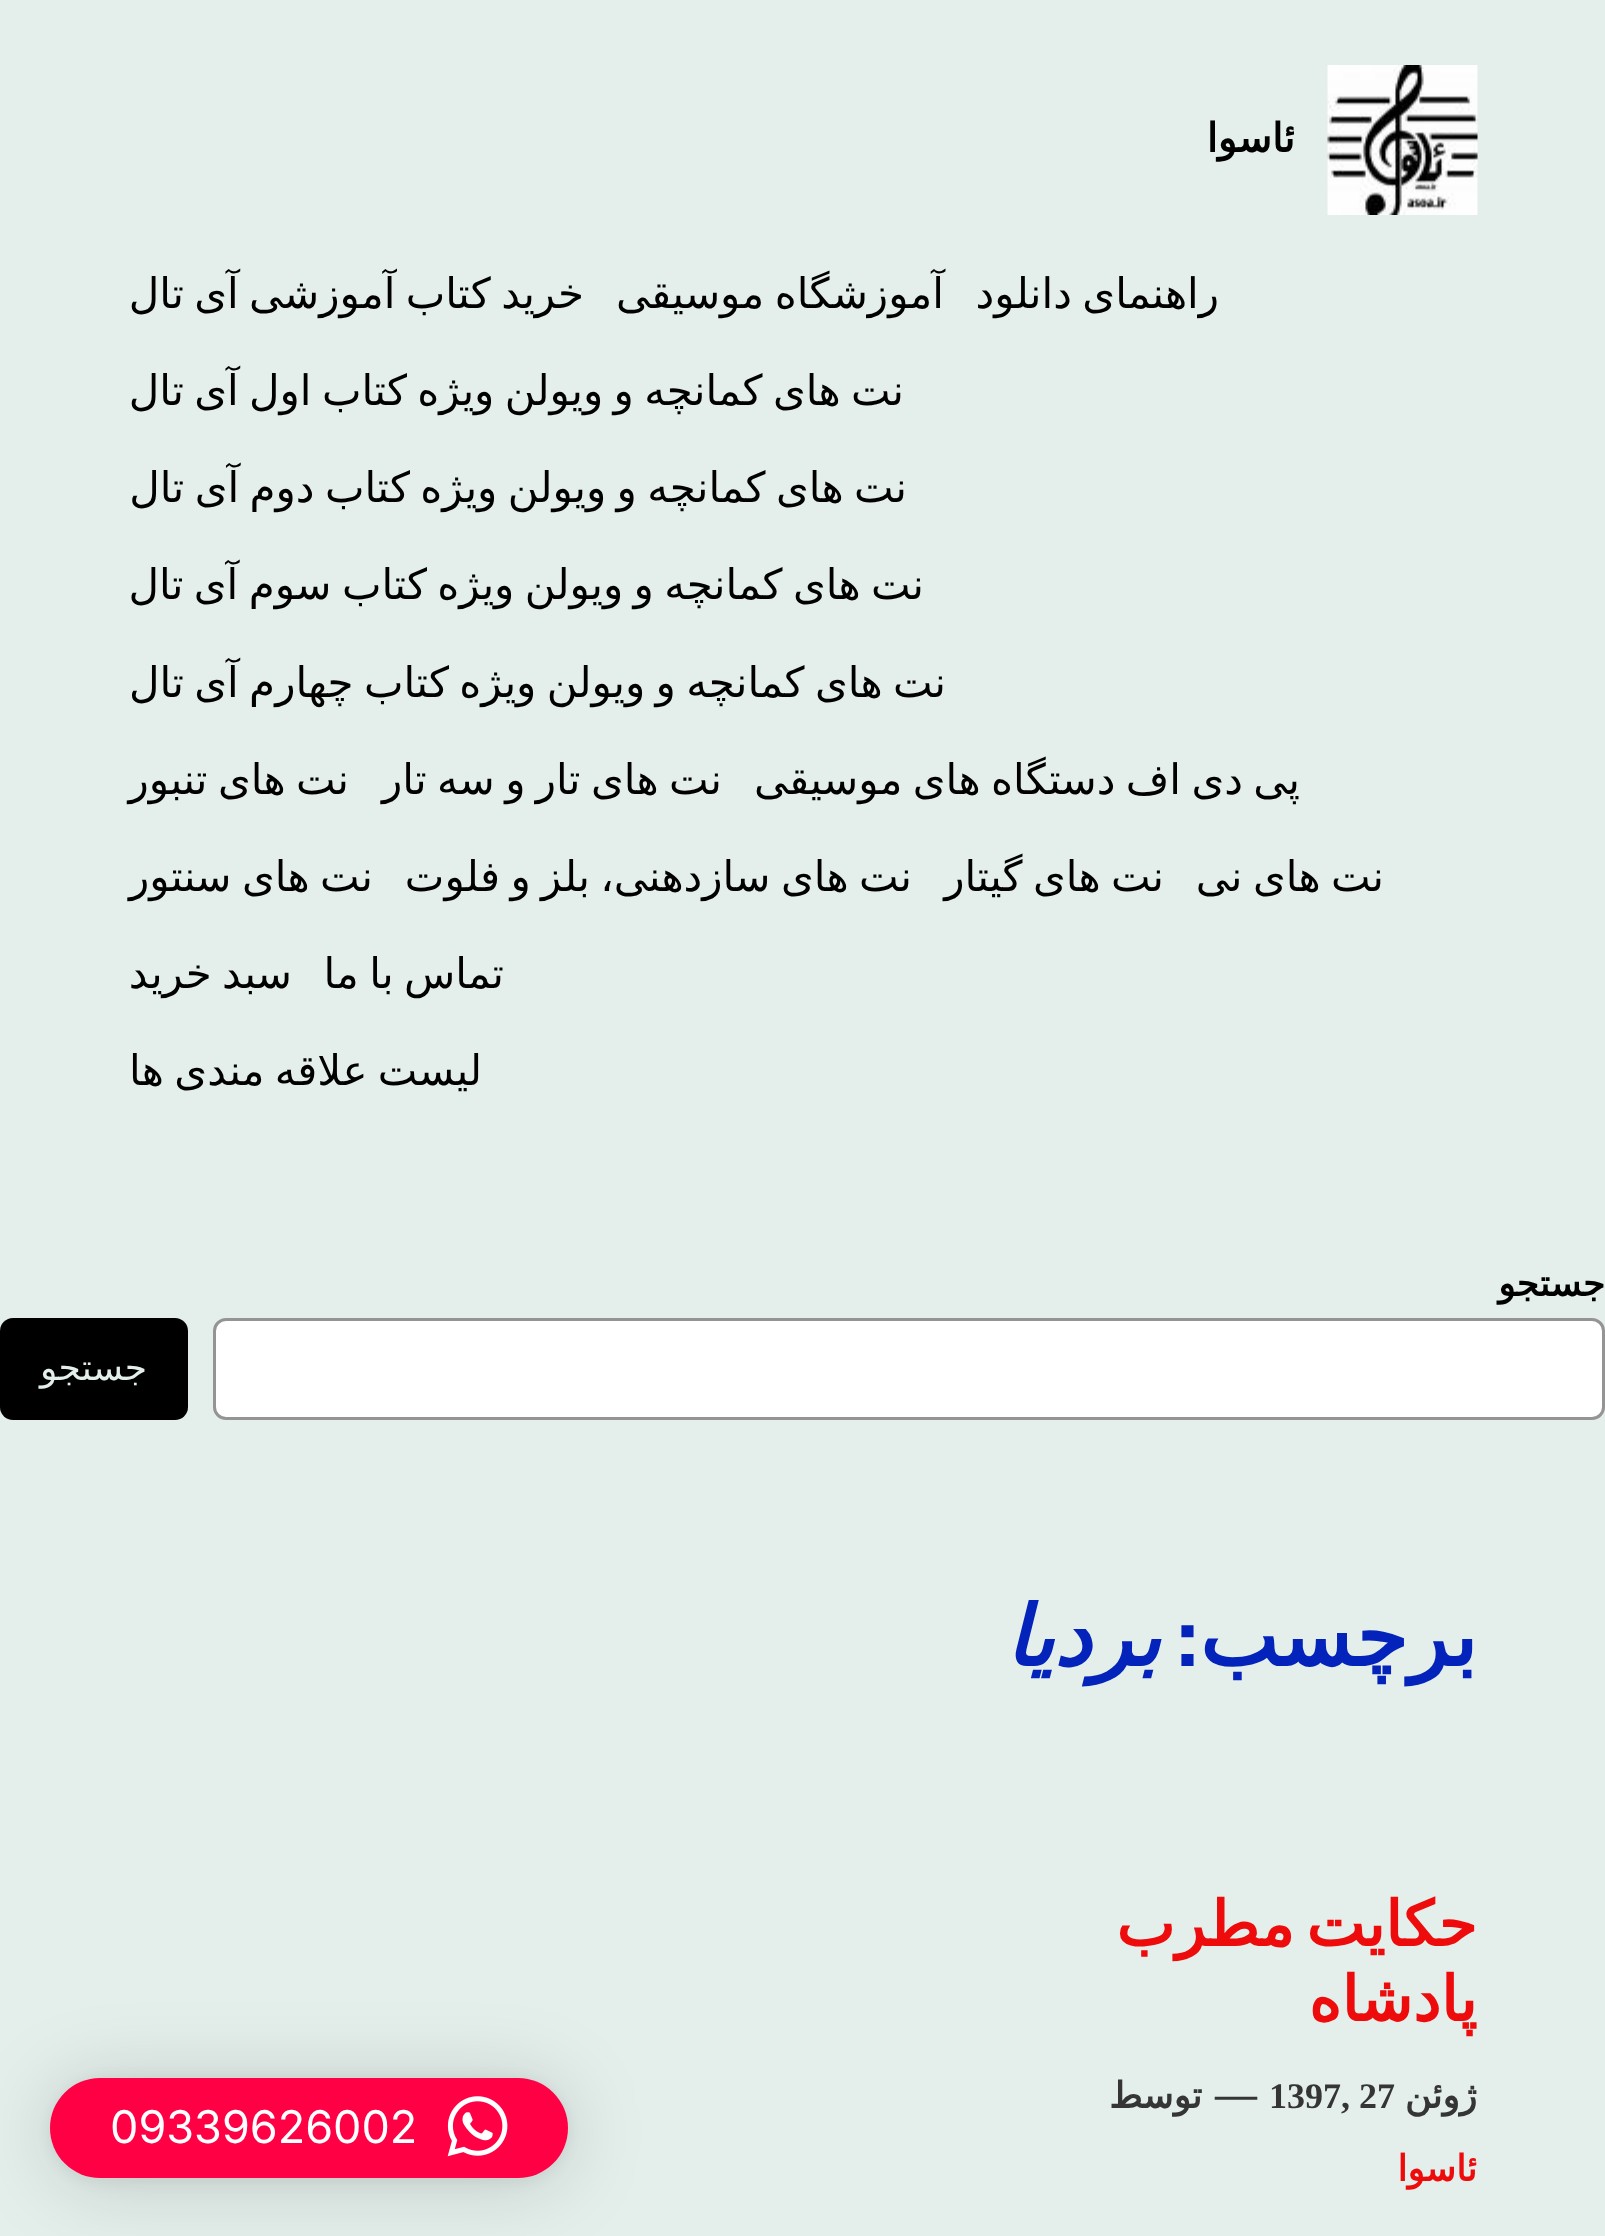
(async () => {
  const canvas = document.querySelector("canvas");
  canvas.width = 1605;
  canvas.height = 2236;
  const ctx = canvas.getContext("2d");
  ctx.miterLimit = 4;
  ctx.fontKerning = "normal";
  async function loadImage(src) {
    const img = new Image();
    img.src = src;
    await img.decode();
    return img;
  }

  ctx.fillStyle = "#e4efeb";
  ctx.fillRect(0, 0, 1605, 2236);
  ctx.drawImage(await loadImage("img/1.png"), 1327, 65, 151, 150);
  ctx.fillStyle = "#ffffff";
  ctx.beginPath();
  ctx.roundRect(214.5, 1319.5, 1389, 99, 11.5);
  ctx.fill();
  ctx.strokeStyle = "#949494";
  ctx.lineWidth = 3;
  ctx.stroke();
  ctx.fillStyle = "#000000";
  ctx.beginPath();
  ctx.roundRect(0, 1318, 188, 102, 13);
  ctx.fill();
  ctx.fillStyle = "rgba(0, 0, 0, 0.16)";
  ctx.filter = "blur(40px)";
  ctx.beginPath();
  ctx.roundRect(50, 2083, 518, 100, 50);
  ctx.fill();
  ctx.filter = "none";
  ctx.fillStyle = "rgba(0, 0, 0, 0.06)";
  ctx.filter = "blur(7.5px)";
  ctx.beginPath();
  ctx.roundRect(50, 2080, 518, 100, 50);
  ctx.fill();
  ctx.filter = "none";
  ctx.fillStyle = "#ff0044";
  ctx.beginPath();
  ctx.roundRect(50, 2078, 518, 100, 50);
  ctx.fill();
  ctx.drawImage(await loadImage("img/2.png"), 447, 2096, 61, 61);
  ctx.direction = "rtl";
  ctx.font = "bold 40px DejaVu Sans";
  ctx.fillStyle = "#000000";
  ctx.fillText("ئاسوا", 1295, 152);
  ctx.wordSpacing = "-3px";
  ctx.font = "42px DejaVu Sans";
  for (const [text, x, y] of [
    ["راهنمای دانلود", 1219, 308],
    ["آموزشگاه موسیقی", 944, 308],
    ["خرید کتاب آموزشی آی تال", 584, 308],
    ["نت های کمانچه و ویولن ویژه کتاب اول آی تال", 904, 405],
    ["نت های کمانچه و ویولن ویژه کتاب دوم آی تال", 907, 502],
    ["نت های کمانچه و ویولن ویژه کتاب سوم آی تال", 924, 599],
    ["نت های کمانچه و ویولن ویژه کتاب چهارم آی تال", 946, 697],
    ["پی دی اف دستگاه های موسیقی", 1300, 794],
    ["نت های تار و سه تار", 722, 794],
    ["نت های تنبور", 349, 794],
    ["نت های نی", 1384, 891],
    ["نت های گیتار", 1164, 891],
    ["نت های سازدهنی، بلز و فلوت", 912, 891],
    ["نت های سنتور", 373, 891],
    ["تماس با ما", 504, 988],
    ["سبد خرید", 292, 988],
    ["لیست علاقه مندی ها", 482, 1085],
  ]) {
    ctx.fillText(text, x, y);
  }
  ctx.wordSpacing = "0px";
  ctx.font = "bold 36px DejaVu Sans";
  ctx.fillText("جستجو", 1605, 1296);
  ctx.font = "36px DejaVu Sans";
  ctx.fillStyle = "#e4efeb";
  ctx.fillText("جستجو", 147, 1380);
  ctx.font = "bold 83.5px DejaVu Sans";
  ctx.fillStyle = "#0423bb";
  ctx.fillText("برچسب", 1477, 1666);
  ctx.font = "600 83.5px Instrument Sans";
  ctx.fillText(":", 1199, 1666);
  ctx.font = "italic bold 83.5px DejaVu Sans";
  ctx.fillText("بردیا", 1160, 1666);
  ctx.wordSpacing = "-8px";
  ctx.font = "bold 62.5px DejaVu Sans";
  ctx.fillStyle = "#ed0b0b";
  ctx.fillText("حکایت مطرب", 1477, 1946);
  ctx.wordSpacing = "0px";
  ctx.fillText("پادشاه", 1477, 2021);
  ctx.font = "bold 36px DejaVu Sans";
  ctx.fillStyle = "#353535";
  ctx.fillText("ژوئن", 1477, 2108);
  ctx.direction = "ltr";
  ctx.font = "bold 36px Liberation Serif";
  ctx.fillText("1397, 27", 1269, 2108);
  ctx.font = "bold 42px Liberation Serif";
  ctx.fillText("—", 1215, 2108);
  ctx.direction = "rtl";
  ctx.font = "bold 36px DejaVu Sans";
  ctx.fillText("توسط", 1202, 2108);
  ctx.fillStyle = "#ed0b0b";
  ctx.fillText("ئاسوا", 1477, 2181);
  ctx.direction = "ltr";
  ctx.font = "45px Inter";
  ctx.fillStyle = "#ffffff";
  ctx.fillText("09339626002", 110, 2143);
})();
